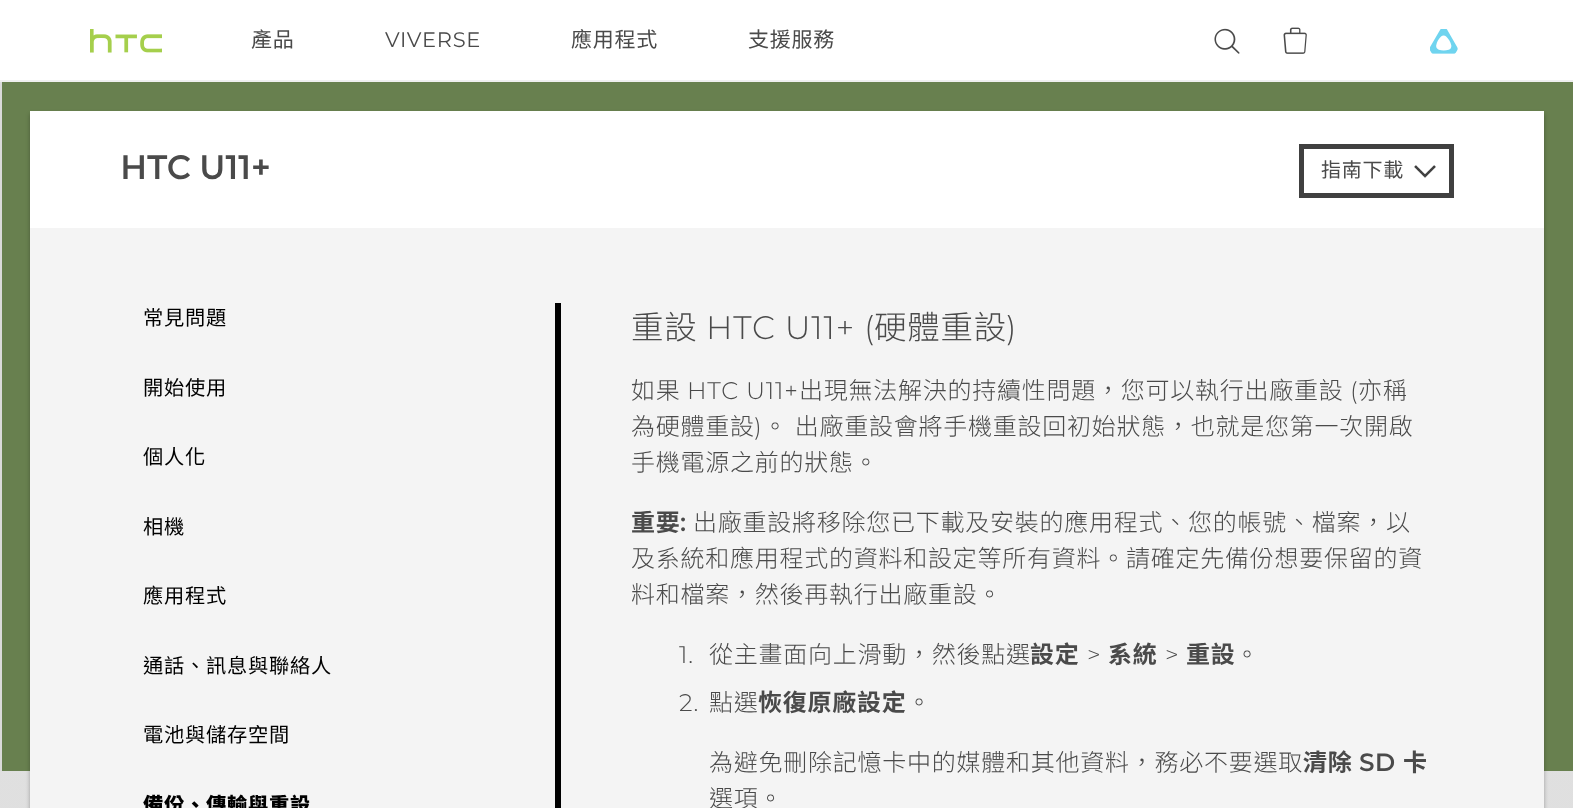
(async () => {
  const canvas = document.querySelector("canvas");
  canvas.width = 1573;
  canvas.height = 808;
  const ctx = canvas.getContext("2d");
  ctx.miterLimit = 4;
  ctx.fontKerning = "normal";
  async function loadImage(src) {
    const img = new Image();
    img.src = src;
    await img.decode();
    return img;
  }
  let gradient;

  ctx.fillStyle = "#ffffff";
  ctx.fillRect(0, 0, 1573, 808);
  ctx.fillStyle = "#efefef";
  ctx.fillRect(0, 80, 1573, 2);
  ctx.drawImage(await loadImage("img/1.png"), 90, 29, 72, 24);
  ctx.drawImage(await loadImage("img/2.png"), 1214, 28, 26, 26);
  ctx.drawImage(await loadImage("img/3.png"), 1283, 27, 24, 27);
  ctx.drawImage(await loadImage("img/4.png"), 1430, 29, 28, 25);
  gradient = ctx.createLinearGradient(787, 81, 787, 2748);
  gradient.addColorStop(0, "#dadada");
  gradient.addColorStop(0.88, "#ececec");
  gradient.addColorStop(1, "#ececec");
  ctx.fillStyle = gradient;
  ctx.fillRect(0, 771, 1573, 37);
  ctx.fillStyle = "#dadada";
  ctx.fillRect(0, 82, 2, 689);
  ctx.fillStyle = "#68804f";
  ctx.fillRect(2, 82, 1571, 689);
  ctx.fillStyle = "rgba(0, 0, 0, 0.3)";
  ctx.filter = "blur(2px)";
  ctx.beginPath();
  ctx.rect(30, 114, 1514, 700);
  ctx.fill();
  ctx.filter = "none";
  ctx.fillStyle = "#ffffff";
  ctx.fillRect(30, 111, 1514, 117);
  ctx.strokeStyle = "#404040";
  ctx.lineWidth = 5;
  ctx.strokeRect(1301.5, 146.5, 150, 49);
  ctx.drawImage(await loadImage("img/5.png"), 1414, 165, 22, 13);
  ctx.fillStyle = "#f4f4f4";
  ctx.fillRect(30, 228, 1514, 580);
  ctx.fillStyle = "#000000";
  ctx.fillRect(555, 303, 6, 505);
  ctx.letterSpacing = "0.75px";
  ctx.font = "21px Noto Sans TC";
  ctx.fillStyle = "#4a4a4a";
  ctx.fillText("產品", 251, 47);
  ctx.font = "21px Montserrat";
  ctx.fillText("VIVERSE", 385, 47);
  ctx.font = "21px Noto Sans TC";
  ctx.fillText("應用程式", 571, 47);
  ctx.fillText("支援服務", 748, 47);
  ctx.wordSpacing = "-1px";
  ctx.font = "bold 32.5px Montserrat";
  ctx.fillText("HTC U11+", 120, 179);
  ctx.wordSpacing = "0px";
  ctx.font = "20px Noto Sans TC";
  ctx.fillText("指南下載", 1321, 177);
  ctx.font = "20.25px Noto Sans TC";
  ctx.fillStyle = "#000000";
  for (const [text, x, y] of [
    ["常見問題", 143, 325],
    ["開始使用", 143, 395],
    ["個人化", 143, 464],
    ["相機", 143, 534],
    ["應用程式", 143, 603],
    ["通話、訊息與聯絡人", 143, 673],
    ["電池與儲存空間", 143, 742],
  ]) {
    ctx.fillText(text, x, y);
  }
  ctx.font = "900 20.25px Noto Sans TC";
  ctx.fillText("備份、傳輸與重設", 143, 812);
  ctx.font = "300 32.5px Noto Sans TC";
  ctx.fillStyle = "#4a4a4a";
  ctx.fillText("重設", 631, 339);
  ctx.font = "300 32.5px Montserrat";
  ctx.fillText("HTC U11‍+ (", 706, 339);
  ctx.font = "300 32.5px Noto Sans TC";
  ctx.fillText("硬體重設", 874, 339);
  ctx.font = "300 32.5px Montserrat";
  ctx.fillText(")", 1006, 339);
  ctx.font = "300 24px Noto Sans TC";
  ctx.fillText("如果", 631, 399);
  ctx.font = "300 24px Montserrat";
  ctx.fillText("HTC U11‍+", 687, 399);
  ctx.font = "300 24px Noto Sans TC";
  ctx.fillText("出現無法解決的持續性問題，您可以執行出廠重設", 799, 399);
  ctx.font = "300 24px Montserrat";
  ctx.fillText("(", 1350, 399);
  ctx.font = "300 24px Noto Sans TC";
  ctx.fillText("亦稱", 1358, 399);
  ctx.fillText("為硬體重設", 631, 435);
  ctx.font = "300 24px Montserrat";
  ctx.fillText(")", 754, 435);
  ctx.wordSpacing = "1px";
  ctx.font = "300 24px Noto Sans TC";
  ctx.fillText("。 出廠重設會將手機重設回初始狀態，也就是您第一次開啟", 763, 435);
  ctx.wordSpacing = "0px";
  ctx.fillText("手機電源之前的狀態。", 631, 471);
  ctx.font = "bold 24px Noto Sans TC";
  ctx.fillText("重要", 631, 531);
  ctx.font = "bold 24px Montserrat";
  ctx.fillText(":", 680, 531);
  ctx.font = "300 24px Noto Sans TC";
  for (const [text, x, y] of [
    ["出廠重設將移除您已下載及安裝的應用程式、您的帳號、檔案，以", 693, 531],
    ["及系統和應用程式的資料和設定等所有資料。請確定先備份想要保留的資", 631, 567],
    ["料和檔案，然後再執行出廠重設。", 631, 603],
  ]) {
    ctx.fillText(text, x, y);
  }
  ctx.font = "300 24px Montserrat";
  ctx.fillText("1.", 679, 663);
  ctx.font = "300 24px Noto Sans TC";
  ctx.fillText("從主畫面向上滑動，然後點選", 709, 663);
  ctx.font = "bold 24px Noto Sans TC";
  ctx.fillText("設定", 1030, 663);
  ctx.font = "300 24px Montserrat";
  ctx.fillText(">", 1087, 663);
  ctx.font = "bold 24px Noto Sans TC";
  ctx.fillText("系統", 1108, 663);
  ctx.font = "300 24px Montserrat";
  ctx.fillText(">", 1165, 663);
  ctx.font = "bold 24px Noto Sans TC";
  ctx.fillText("重設", 1186, 663);
  ctx.font = "300 24px Noto Sans TC";
  ctx.fillText("。", 1235, 663);
  ctx.font = "300 24px Montserrat";
  ctx.fillText("2.", 679, 711);
  ctx.font = "300 24px Noto Sans TC";
  ctx.fillText("點選", 709, 711);
  ctx.font = "bold 24px Noto Sans TC";
  ctx.fillText("恢復原廠設定", 758, 711);
  ctx.font = "300 24px Noto Sans TC";
  ctx.fillText("。", 907, 711);
  ctx.fillText("為避免刪除記憶卡中的媒體和其他資料，務必不要選取", 709, 771);
  ctx.font = "bold 24px Noto Sans TC";
  ctx.fillText("清除", 1303, 771);
  ctx.font = "bold 24px Montserrat";
  ctx.fillText("SD", 1359, 771);
  ctx.font = "bold 24px Noto Sans TC";
  ctx.fillText("卡", 1403, 771);
  ctx.font = "300 24px Noto Sans TC";
  ctx.fillText("選項。", 709, 807);
})();
